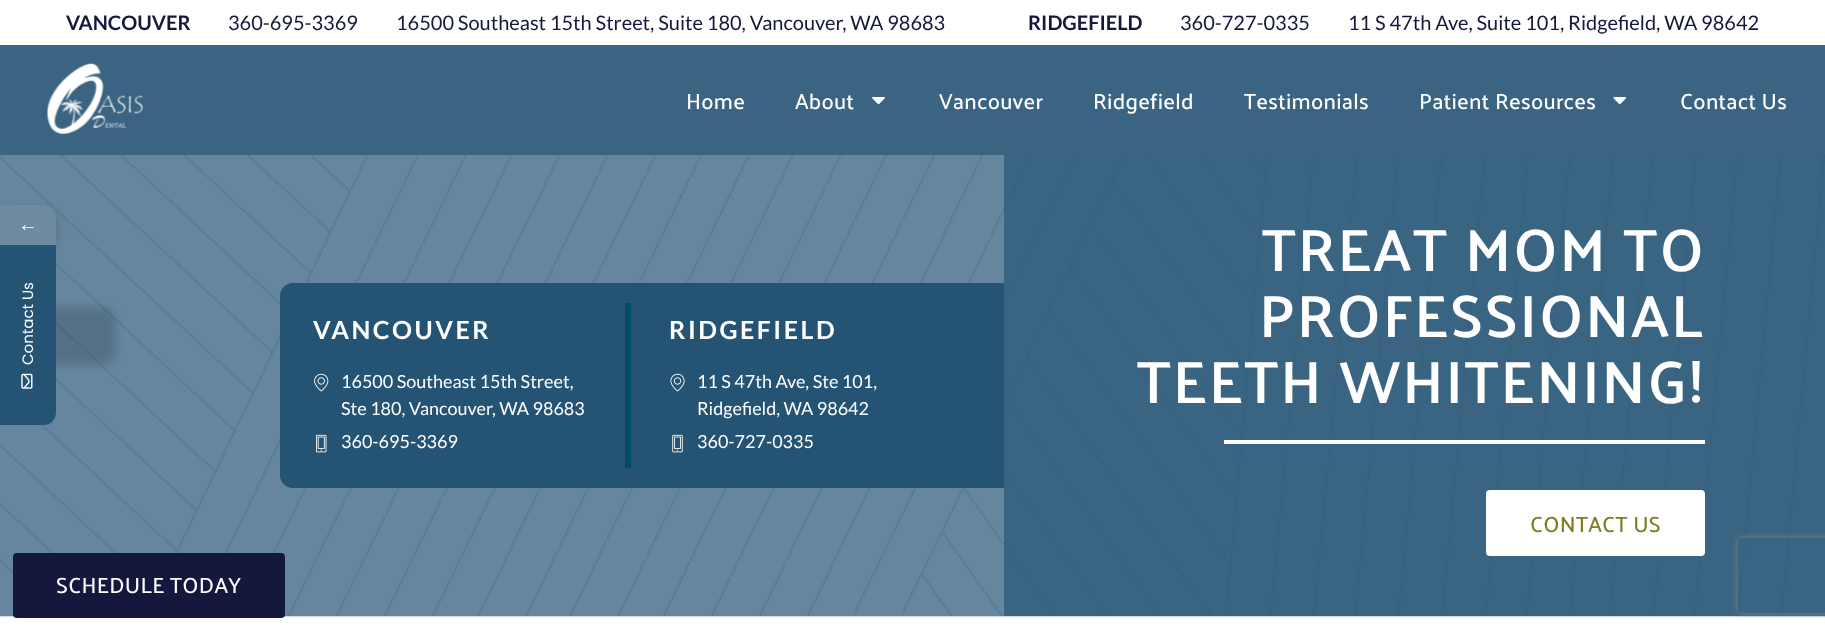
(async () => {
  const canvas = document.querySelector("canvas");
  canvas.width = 1825;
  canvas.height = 629;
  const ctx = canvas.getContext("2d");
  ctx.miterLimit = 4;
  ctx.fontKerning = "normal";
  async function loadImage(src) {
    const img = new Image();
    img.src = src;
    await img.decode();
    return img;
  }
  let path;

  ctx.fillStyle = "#ffffff";
  ctx.fillRect(0, 0, 1825, 629);
  ctx.drawImage(await loadImage("img/5.png"), 0, 155, 1825, 462);
  ctx.fillStyle = "rgba(0, 0, 0, 0.16)";
  ctx.filter = "blur(4px)";
  ctx.beginPath();
  ctx.roundRect(0, 209, 56, 40, 13);
  ctx.fill();
  ctx.filter = "none";
  ctx.fillStyle = "#6f8b9f";
  ctx.beginPath();
  ctx.roundRect(0, 205, 56, 40, [0, 13, 0, 0]);
  ctx.fill();
  ctx.fillStyle = "rgba(0, 0, 0, 0.16)";
  ctx.filter = "blur(4px)";
  ctx.beginPath();
  ctx.roundRect(-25, 308, 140, 56, 13);
  ctx.fill();
  ctx.filter = "none";
  ctx.fillStyle = "#245373";
  path = new Path2D("M0 425V245H56V412C56 419 51 425 44 425Z");
  ctx.fill(path);
  ctx.drawImage(await loadImage("img/1.png"), 21, 373, 12, 16);
  ctx.fillStyle = "#3a6481";
  ctx.fillRect(0, 45, 1825, 110);
  ctx.drawImage(await loadImage("img/2.png"), 47, 63, 96, 71);
  ctx.drawImage(await loadImage("img/3.png"), 872, 97, 13, 8);
  ctx.drawImage(await loadImage("img/4.png"), 1613, 97, 14, 8);
  ctx.fillStyle = "#15183d";
  ctx.beginPath();
  ctx.roundRect(13, 553, 272, 65, 4);
  ctx.fill();
  ctx.fillStyle = "#245373";
  ctx.beginPath();
  ctx.roundRect(280, 283, 724, 205, [13, 0, 0, 13]);
  ctx.fill();
  ctx.fillStyle = "#004969";
  ctx.fillRect(625, 303, 6, 165);
  ctx.drawImage(await loadImage("img/6.png"), 314, 373, 15, 19);
  ctx.drawImage(await loadImage("img/7.png"), 316, 434, 11, 19);
  ctx.drawImage(await loadImage("img/8.png"), 670, 373, 15, 19);
  ctx.drawImage(await loadImage("img/9.png"), 672, 434, 11, 19);
  ctx.fillStyle = "rgba(36, 83, 115, 0.66)";
  ctx.fillRect(1004, 155, 821, 461);
  ctx.fillStyle = "#ffffff";
  ctx.fillRect(1224, 440, 481, 4);
  ctx.beginPath();
  ctx.roundRect(1486, 490, 219, 66, 4);
  ctx.fill();
  ctx.save();
  path = new Path2D("M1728 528H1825V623H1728ZM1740.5 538H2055.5C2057 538 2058 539 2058 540.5V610.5C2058 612 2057 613 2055.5 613H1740.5C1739 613 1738 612 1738 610.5V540.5C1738 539 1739 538 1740.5 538Z");
  ctx.clip(path, "evenodd");
  ctx.fillStyle = "#808080";
  ctx.filter = "blur(3px)";
  ctx.beginPath();
  ctx.roundRect(1738, 538, 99, 75, 2.5);
  ctx.fill();
  ctx.filter = "none";
  ctx.restore();
  ctx.font = "20px Liberation Serif";
  ctx.fillText("←", 18, 231);
  ctx.font = "15px Poppins";
  ctx.save();
  ctx.translate(33, 365);
  ctx.rotate(-90 * Math.PI / 180);
  ctx.fillText("Contact Us", 0, 0);
  ctx.restore();
  ctx.font = "bold 20px Lato";
  ctx.fillStyle = "#15183d";
  ctx.fillText("VANCOUVER", 66, 30);
  ctx.font = "20px Lato";
  ctx.fillText("360-695-3369", 228, 30);
  ctx.fillText("16500 Southeast 15th Street, Suite 180, Vancouver, WA 98683", 396, 30);
  ctx.font = "bold 20px Lato";
  ctx.fillText("RIDGEFIELD", 1028, 30);
  ctx.font = "20px Lato";
  ctx.fillText("360-727-0335", 1180, 30);
  ctx.fillText("11 S 47th Ave, Suite 101, Ridgefield, WA 98642", 1348, 30);
  ctx.letterSpacing = "0.25px";
  ctx.font = "500 22px Palanquin";
  ctx.fillStyle = "#ffffff";
  for (const [text, x, y] of [
    ["Home", 686, 109],
    ["About", 795, 109],
    ["Vancouver", 939, 109],
    ["Ridgefield", 1093, 109],
    ["Testimonials", 1244, 109],
    ["Patient Resources", 1419, 109],
    ["Contact Us", 1680, 109],
    ["SCHEDULE TODAY", 56, 593],
  ]) {
    ctx.fillText(text, x, y);
  }
  ctx.letterSpacing = "2.5px";
  ctx.font = "bold 25px Lato";
  ctx.fillText("VANCOUVER", 313, 339);
  ctx.letterSpacing = "0px";
  ctx.font = "18px Lato";
  for (const [text, x, y] of [
    ["16500 Southeast 15th Street,", 341, 388],
    ["Ste 180, Vancouver, WA 98683", 341, 415],
    ["360-695-3369", 341, 448],
  ]) {
    ctx.fillText(text, x, y);
  }
  ctx.letterSpacing = "2.5px";
  ctx.font = "bold 25px Lato";
  ctx.fillText("RIDGEFIELD", 669, 339);
  ctx.letterSpacing = "0px";
  ctx.font = "18px Lato";
  for (const [text, x, y] of [
    ["11 S 47th Ave, Ste 101,", 697, 388],
    ["Ridgefield, WA 98642", 697, 415],
    ["360-727-0335", 697, 448],
  ]) {
    ctx.fillText(text, x, y);
  }
  ctx.letterSpacing = "1.9px";
  ctx.font = "600 60px Palanquin";
  for (const [text, x, y] of [
    ["TREAT MOM TO", 1262, 271],
    ["PROFESSIONAL", 1259, 337],
    ["TEETH WHITENING!", 1137, 403],
  ]) {
    ctx.fillText(text, x, y);
  }
  ctx.letterSpacing = "0.25px";
  ctx.font = "500 22px Palanquin";
  ctx.fillStyle = "#7d7c1f";
  ctx.fillText("CONTACT US", 1530, 532);
})();
